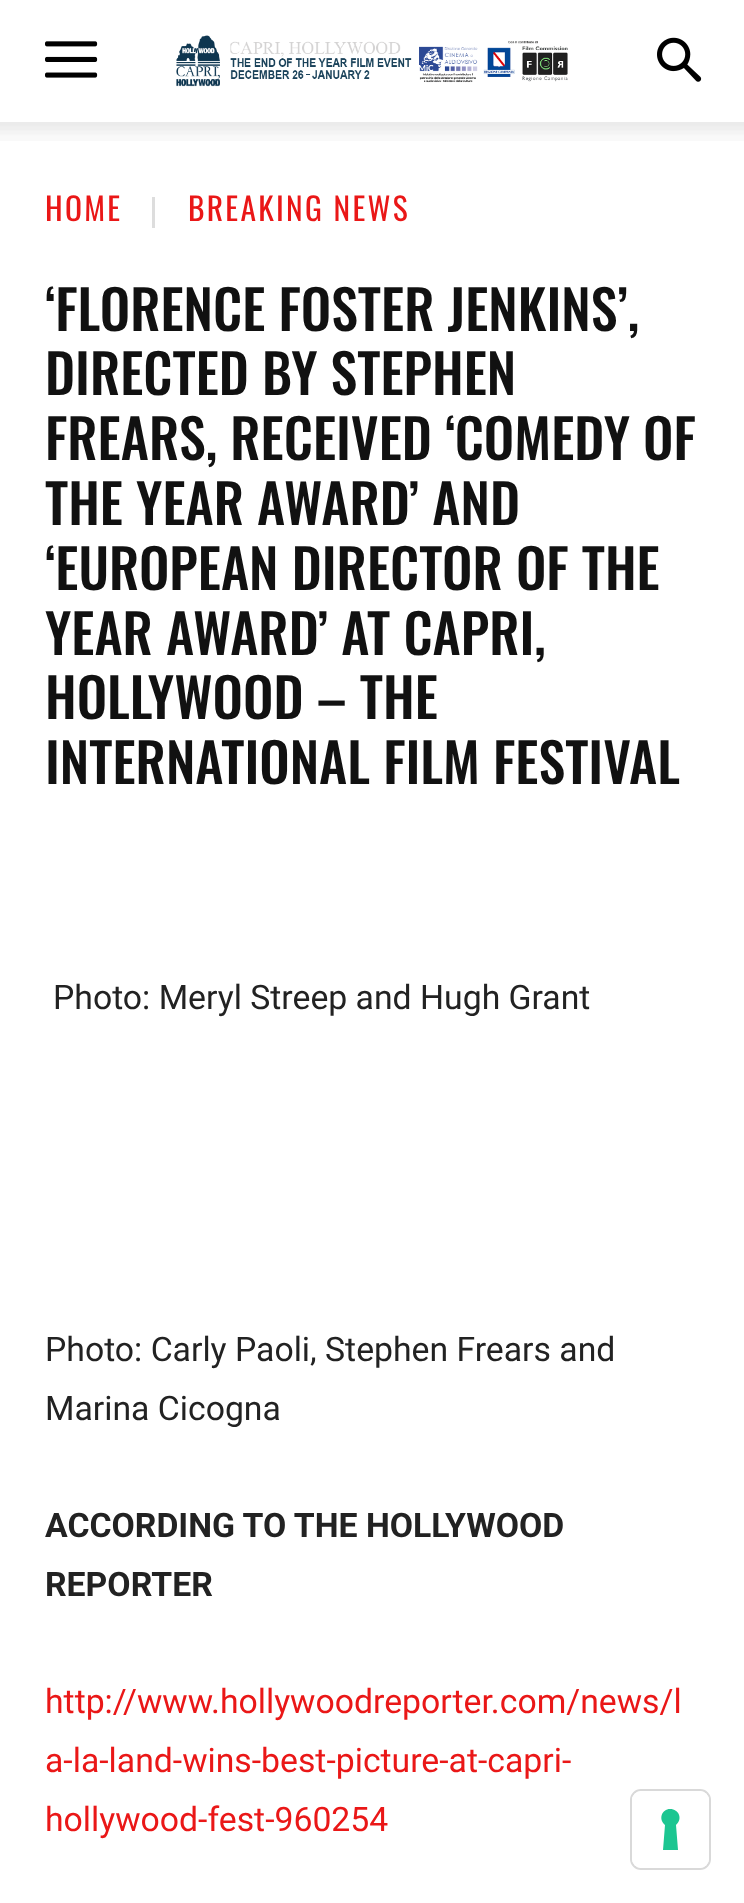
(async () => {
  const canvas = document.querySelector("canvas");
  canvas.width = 744;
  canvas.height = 1903;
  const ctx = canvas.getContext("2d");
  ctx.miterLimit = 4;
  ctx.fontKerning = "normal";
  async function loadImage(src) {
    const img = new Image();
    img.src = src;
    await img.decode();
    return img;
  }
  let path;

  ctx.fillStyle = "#ffffff";
  ctx.fillRect(0, 0, 744, 1903);
  ctx.drawImage(await loadImage("img/1.png"), 45, 41, 53, 37);
  ctx.drawImage(await loadImage("img/2.png"), 176, 35, 392, 52);
  ctx.drawImage(await loadImage("img/3.png"), 657, 37, 45, 45);
  ctx.drawImage(await loadImage("img/4.png"), 0, 122, 744, 19);
  ctx.fillStyle = "#dddddd";
  ctx.fillRect(152, 197, 3, 31);
  ctx.beginPath();
  ctx.roundRect(631, 1790, 79, 79, 10);
  ctx.strokeStyle = "#d9d9d9";
  ctx.lineWidth = 2;
  ctx.stroke();
  ctx.fillStyle = "#ffffff";
  ctx.beginPath();
  ctx.roundRect(632, 1791, 77, 77, 9);
  ctx.fill();
  ctx.fillStyle = "#1cc691";
  path = new Path2D("M670 1809C679 1809 683 1819 676 1825L678 1850H663L665 1825C658 1819 662 1809 670 1809Z");
  ctx.fill(path, "evenodd");
  ctx.letterSpacing = "2.25px";
  ctx.font = "31.5px Oswald";
  ctx.fillStyle = "#ea1717";
  ctx.fillText("HOME", 45, 221);
  ctx.fillText("BREAKING NEWS", 188, 221);
  ctx.letterSpacing = "0px";
  ctx.font = "500 54px Oswald";
  ctx.fillStyle = "#111111";
  for (const [text, x, y] of [
    ["‘FLORENCE FOSTER JENKINS’,", 45, 331],
    ["DIRECTED BY STEPHEN", 45, 395],
    ["FREARS, RECEIVED ‘COMEDY OF", 45, 460],
    ["THE YEAR AWARD’ AND", 45, 525],
    ["‘EUROPEAN DIRECTOR OF THE", 45, 590],
    ["YEAR AWARD’ AT CAPRI,", 45, 655],
    ["HOLLYWOOD – THE", 45, 719],
    ["INTERNATIONAL FILM FESTIVAL", 45, 784],
  ]) {
    ctx.fillText(text, x, y);
  }
  ctx.font = "33.75px Roboto";
  ctx.fillStyle = "#222222";
  for (const [text, x, y] of [
    ["Photo: Meryl Streep and Hugh Grant", 53, 1009],
    ["Photo: Carly Paoli, Stephen Frears and", 45, 1361],
    ["Marina Cicogna", 45, 1420],
  ]) {
    ctx.fillText(text, x, y);
  }
  ctx.font = "bold 33.75px Roboto";
  ctx.fillText("ACCORDING TO THE HOLLYWOOD", 45, 1537);
  ctx.fillText("REPORTER", 45, 1596);
  ctx.font = "33.75px Roboto";
  ctx.fillStyle = "#ea1717";
  for (const [text, x, y] of [
    ["http://www.hollywoodreporter.com/news/l", 45, 1713],
    ["a-la-land-wins-best-picture-at-capri-", 45, 1772],
    ["hollywood-fest-960254", 45, 1831],
  ]) {
    ctx.fillText(text, x, y);
  }
})();
